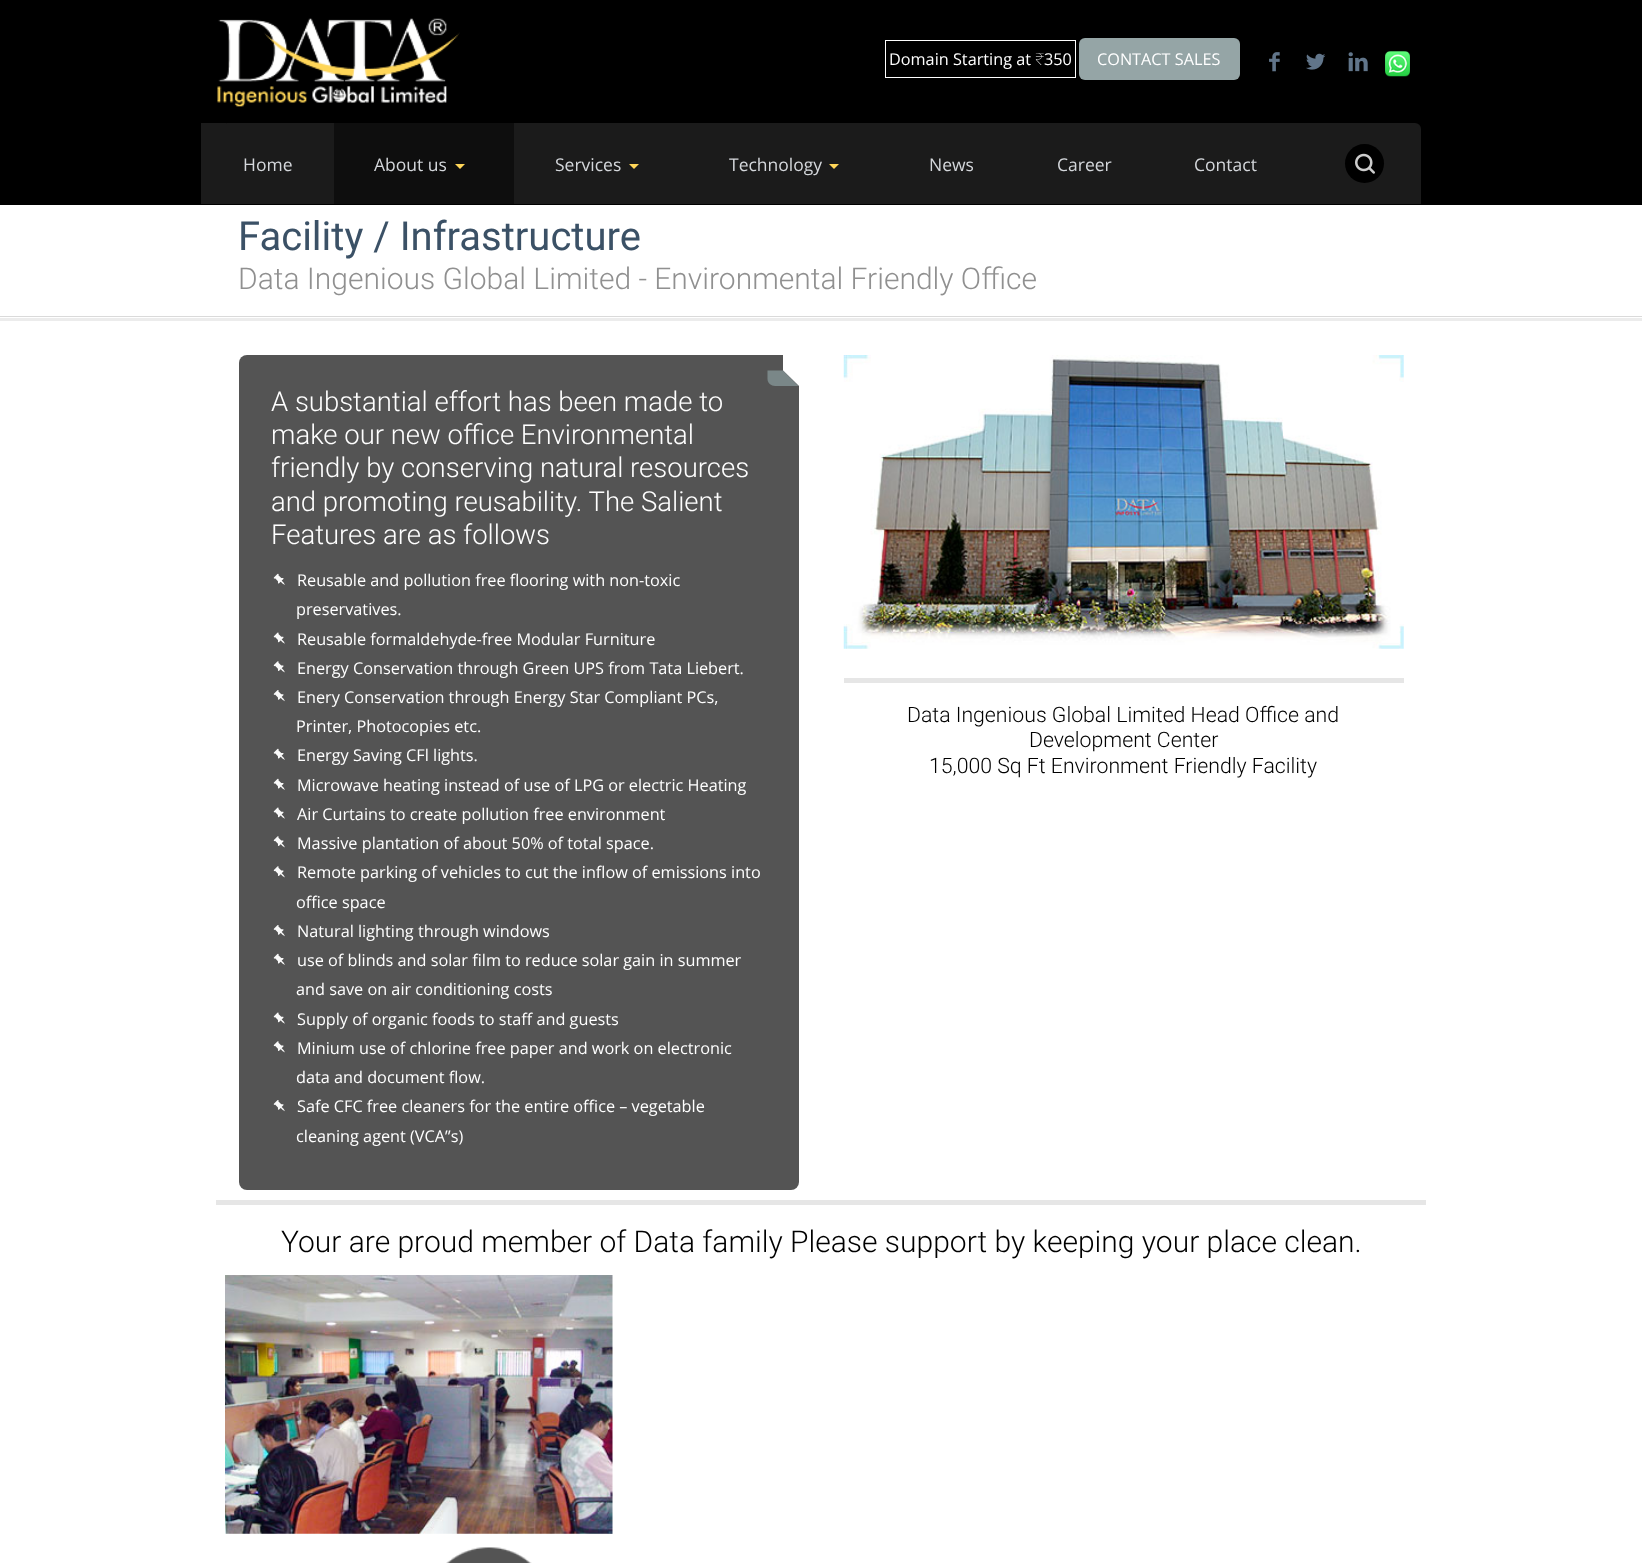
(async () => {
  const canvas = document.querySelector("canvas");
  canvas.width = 1642;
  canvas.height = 1563;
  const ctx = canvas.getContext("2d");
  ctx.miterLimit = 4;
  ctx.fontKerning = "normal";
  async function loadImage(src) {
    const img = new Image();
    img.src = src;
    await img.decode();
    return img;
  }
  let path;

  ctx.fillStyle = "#ffffff";
  ctx.fillRect(0, 0, 1642, 1563);
  ctx.fillStyle = "#000000";
  ctx.fillRect(0, 0, 1642, 205);
  ctx.drawImage(await loadImage("img/1.png"), 217, 18, 243, 89);
  ctx.strokeStyle = "#ffffff";
  ctx.strokeRect(885.5, 40.5, 190, 37);
  ctx.fillStyle = "#95a5a6";
  ctx.beginPath();
  ctx.roundRect(1079, 38, 161, 42, 6);
  ctx.fill();
  ctx.drawImage(await loadImage("img/2.png"), 1269, 52, 11, 20);
  ctx.drawImage(await loadImage("img/3.png"), 1306, 53, 20, 17);
  ctx.drawImage(await loadImage("img/4.png"), 1348, 52, 20, 20);
  ctx.drawImage(await loadImage("img/5.png"), 1385, 51, 25, 26);
  ctx.fillStyle = "#1b1b1b";
  ctx.beginPath();
  ctx.roundRect(221, 123, 1200, 81, [6, 6, 0, 0]);
  ctx.fill();
  ctx.fillRect(201, 123, 25, 81);
  ctx.fillStyle = "#0e0e0e";
  ctx.fillRect(334, 123, 180, 81);
  ctx.fillStyle = "#ffd658";
  path = new Path2D("M455 164H465L460 169Z");
  ctx.fill(path);
  path = new Path2D("M629 164H639L634 169Z");
  ctx.fill(path);
  path = new Path2D("M829 164H839L834 169Z");
  ctx.fill(path);
  ctx.fillStyle = "#000000";
  ctx.beginPath();
  ctx.arc(1364.5, 163.5, 19.5, 0, Math.PI * 2);
  ctx.fill();
  ctx.drawImage(await loadImage("img/6.png"), 1355, 153, 20, 21);
  ctx.fillStyle = "#ececec";
  path = new Path2D("M0 318V321H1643V209H1642V318Z");
  ctx.fill(path);
  ctx.fillStyle = "#dadada";
  ctx.fillRect(0, 316, 1642, 1);
  ctx.fillStyle = "#545454";
  ctx.beginPath();
  ctx.roundRect(239, 355, 560, 835, [8, 0, 8, 8]);
  ctx.fill();
  ctx.fillStyle = "#ffffff";
  path = new Path2D("M799 355H783V370.5L799 386Z");
  ctx.fill(path);
  ctx.fillStyle = "#7a8788";
  path = new Path2D("M798.5 386L783 370.5H767.5V379C767.5 383 771 386 775 386Z");
  ctx.fill(path);
  ctx.drawImage(await loadImage("img/7.png"), 273, 573, 12, 12);
  ctx.drawImage(await loadImage("img/8.png"), 273, 632, 12, 12);
  ctx.drawImage(await loadImage("img/9.png"), 273, 661, 12, 12);
  ctx.drawImage(await loadImage("img/10.png"), 273, 690, 12, 12);
  ctx.drawImage(await loadImage("img/7.png"), 273, 748, 12, 12);
  ctx.drawImage(await loadImage("img/7.png"), 273, 778, 12, 12);
  ctx.drawImage(await loadImage("img/8.png"), 273, 807, 12, 12);
  ctx.drawImage(await loadImage("img/9.png"), 273, 836, 12, 12);
  ctx.drawImage(await loadImage("img/9.png"), 273, 866, 12, 12);
  ctx.drawImage(await loadImage("img/10.png"), 273, 925, 12, 12);
  ctx.drawImage(await loadImage("img/7.png"), 273, 953, 12, 12);
  ctx.drawImage(await loadImage("img/8.png"), 273, 1012, 12, 12);
  ctx.drawImage(await loadImage("img/9.png"), 273, 1041, 12, 12);
  ctx.drawImage(await loadImage("img/10.png"), 273, 1100, 12, 12);
  ctx.drawImage(await loadImage("img/11.png"), 843, 355, 561, 294);
  ctx.fillStyle = "#e6e6e6";
  ctx.fillRect(844, 678, 560, 5);
  ctx.fillRect(216, 1200, 1210, 5);
  ctx.drawImage(await loadImage("img/12.png"), 225, 1275, 388, 259);
  ctx.drawImage(await loadImage("img/13.png"), 446, 1547, 86, 16);
  ctx.font = "16.25px Open Sans";
  ctx.fillStyle = "#ffffff";
  ctx.fillText("Domain Starting at", 889, 65);
  ctx.font = "100 16.25px Noto Sans";
  ctx.fillText("₹", 1035, 65);
  ctx.font = "16.25px Open Sans";
  ctx.fillText("350", 1044, 65);
  ctx.fillText("CONTACT SALES", 1097, 65);
  ctx.font = "17.5px Open Sans";
  ctx.fillStyle = "#d4d7db";
  for (const [text, x, y] of [
    ["Home", 243, 171],
    ["About us", 374, 171],
    ["Services", 555, 171],
    ["Technology", 729, 171],
    ["News", 929, 171],
    ["Career", 1057, 171],
    ["Contact", 1194, 171],
  ]) {
    ctx.fillText(text, x, y);
  }
  ctx.font = "40px Roboto";
  ctx.fillStyle = "#3b5166";
  ctx.fillText("Facility / Infrastructure", 238, 250);
  ctx.font = "300 30px Roboto";
  ctx.fillStyle = "#909090";
  ctx.fillText("Data Ingenious Global Limited - Environmental Friendly Office", 238, 289);
  ctx.font = "300 27.5px Roboto";
  ctx.fillStyle = "#ffffff";
  for (const [text, x, y] of [
    ["A substantial effort has been made to", 271, 411],
    ["make our new office Environmental", 271, 444],
    ["friendly by conserving natural resources", 271, 477],
    ["and promoting reusability. The Salient", 271, 511],
    ["Features are as follows", 271, 544],
  ]) {
    ctx.fillText(text, x, y);
  }
  ctx.font = "16.25px Open Sans";
  for (const [text, x, y] of [
    ["Reusable and pollution free flooring with non-toxic", 297, 586],
    ["preservatives.", 296, 615],
    ["Reusable formaldehyde-free Modular Furniture", 297, 645],
    ["Energy Conservation through Green UPS from Tata Liebert.", 297, 674],
    ["Enery Conservation through Energy Star Compliant PCs,", 297, 703],
    ["Printer, Photocopies etc.", 296, 732],
    ["Energy Saving CFl lights.", 297, 761],
    ["Microwave heating instead of use of LPG or electric Heating", 297, 791],
    ["Air Curtains to create pollution free environment", 297, 820],
    ["Massive plantation of about 50% of total space.", 297, 849],
    ["Remote parking of vehicles to cut the inflow of emissions into", 297, 878],
    ["office space", 296, 908],
    ["Natural lighting through windows", 297, 937],
    ["use of blinds and solar film to reduce solar gain in summer", 297, 966],
    ["and save on air conditioning costs", 296, 995],
    ["Supply of organic foods to staff and guests", 297, 1025],
    ["Minium use of chlorine free paper and work on electronic", 297, 1054],
    ["data and document flow.", 296, 1083],
    ["Safe CFC free cleaners for the entire office – vegetable", 297, 1112],
    ["cleaning agent (VCA”s)", 296, 1142],
  ]) {
    ctx.fillText(text, x, y);
  }
  ctx.font = "300 21.25px Roboto";
  ctx.fillStyle = "#000000";
  for (const [text, x, y] of [
    ["Data Ingenious Global Limited Head Office and", 907, 722],
    ["Development Center", 1029, 747],
    ["15,000 Sq Ft Environment Friendly Facility", 929, 773],
  ]) {
    ctx.fillText(text, x, y);
  }
  ctx.font = "300 30px Roboto";
  ctx.fillText("Your are proud member of Data family Please support by keeping your place clean.", 281, 1252);
})();
